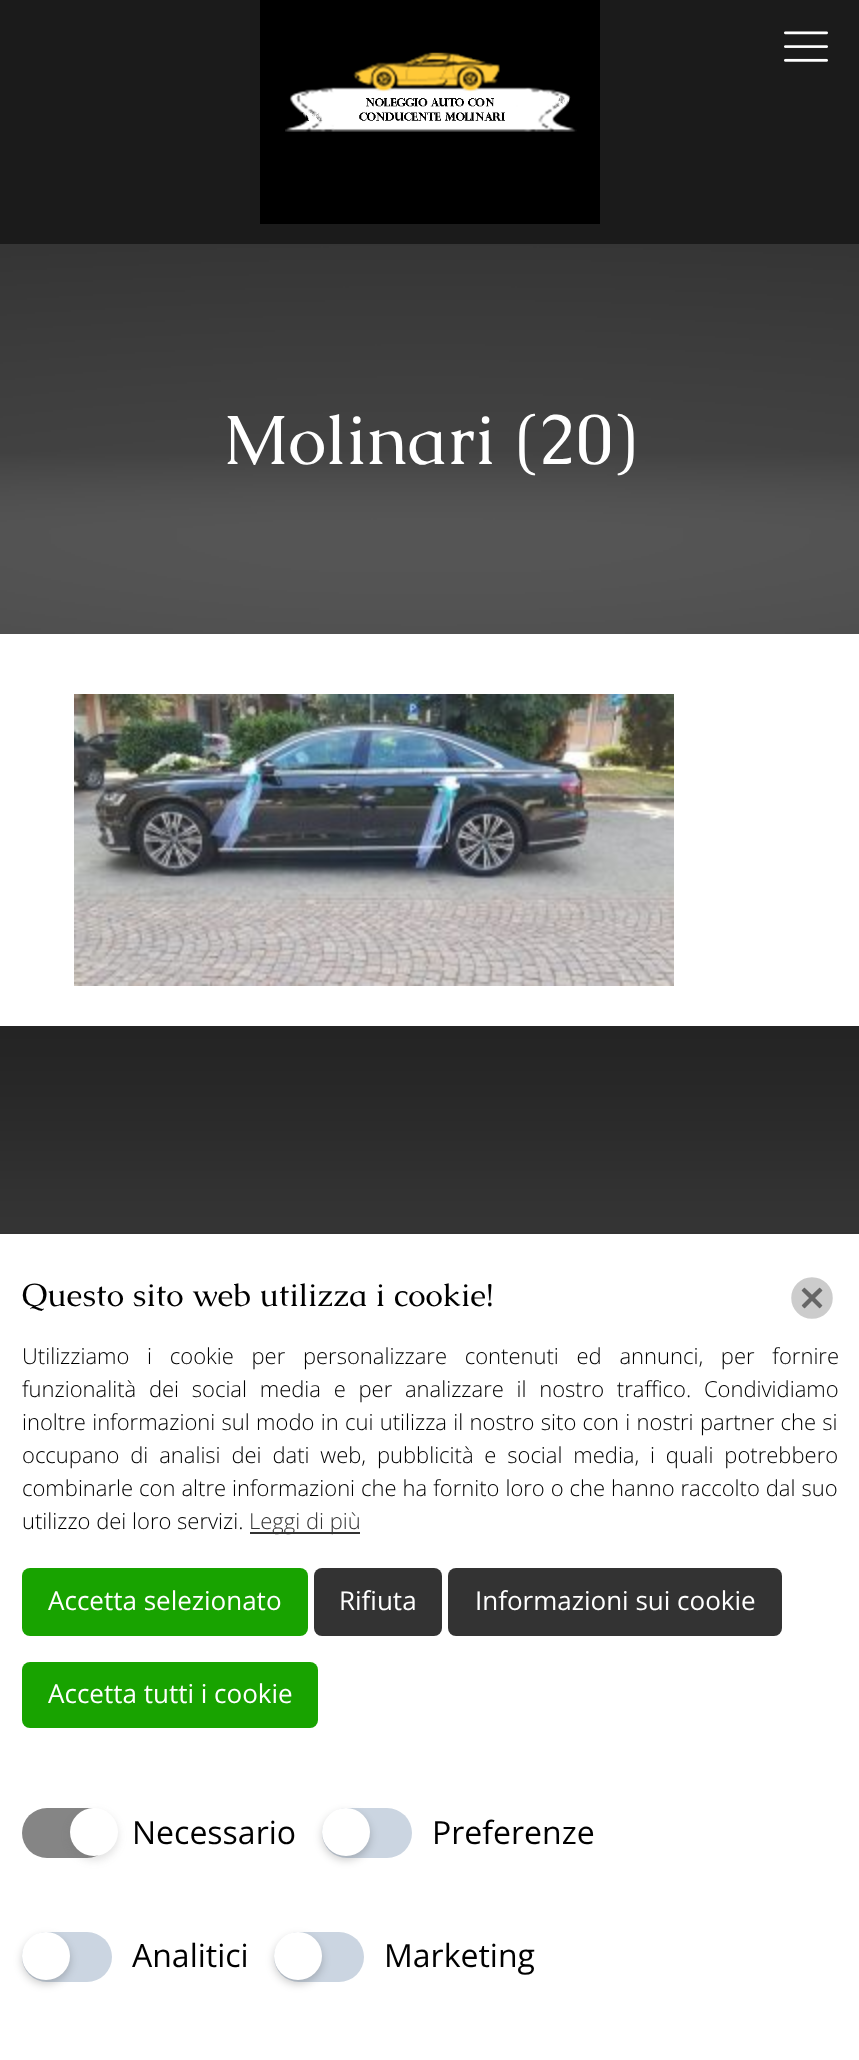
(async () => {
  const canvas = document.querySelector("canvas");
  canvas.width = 859;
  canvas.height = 2060;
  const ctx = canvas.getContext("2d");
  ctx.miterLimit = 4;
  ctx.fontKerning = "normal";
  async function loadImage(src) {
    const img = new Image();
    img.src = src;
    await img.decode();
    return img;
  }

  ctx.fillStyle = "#ffffff";
  ctx.fillRect(0, 0, 859, 2060);
  ctx.fillStyle = "#1b1b1b";
  ctx.fillRect(0, 0, 859, 244);
  ctx.drawImage(await loadImage("img/1.png"), 260, 0, 340, 224);
  ctx.drawImage(await loadImage("img/2.png"), 784, 31, 44, 31);
  ctx.drawImage(await loadImage("img/3.png"), 0, 244, 859, 390);
  ctx.drawImage(await loadImage("img/4.png"), 74, 694, 600, 292);
  ctx.drawImage(await loadImage("img/5.png"), 0, 1026, 859, 206);
  ctx.fillStyle = "#333333";
  ctx.fillRect(0, 1232, 859, 2);
  ctx.drawImage(await loadImage("img/6.png"), 791, 1277, 42, 42);
  ctx.fillRect(250, 1532, 110, 2);
  ctx.fillStyle = "#18a300";
  ctx.beginPath();
  ctx.roundRect(22, 1568, 286, 68, 8);
  ctx.fill();
  ctx.fillStyle = "#333333";
  ctx.beginPath();
  ctx.roundRect(314, 1568, 128, 68, 8);
  ctx.fill();
  ctx.beginPath();
  ctx.roundRect(448, 1568, 334, 68, 8);
  ctx.fill();
  ctx.fillStyle = "#18a300";
  ctx.beginPath();
  ctx.roundRect(22, 1662, 296, 66, 8);
  ctx.fill();
  ctx.fillStyle = "#858585";
  ctx.beginPath();
  ctx.roundRect(22, 1808, 90, 50, 25);
  ctx.fill();
  ctx.fillStyle = "rgba(102, 102, 102, 0.2)";
  ctx.filter = "blur(4px)";
  ctx.beginPath();
  ctx.roundRect(70, 1812, 48, 48, 24);
  ctx.fill();
  ctx.filter = "none";
  ctx.fillStyle = "#ffffff";
  ctx.beginPath();
  ctx.arc(94, 1832, 24, 0, Math.PI * 2);
  ctx.fill();
  ctx.fillStyle = "#cbd5e1";
  ctx.beginPath();
  ctx.roundRect(322, 1808, 90, 50, 25);
  ctx.fill();
  ctx.fillStyle = "rgba(0, 0, 0, 0.2)";
  ctx.filter = "blur(4px)";
  ctx.beginPath();
  ctx.roundRect(322, 1812, 48, 48, 24);
  ctx.fill();
  ctx.filter = "none";
  ctx.fillStyle = "#ffffff";
  ctx.beginPath();
  ctx.arc(346, 1832, 24, 0, Math.PI * 2);
  ctx.fill();
  ctx.fillStyle = "#cbd5e1";
  ctx.beginPath();
  ctx.roundRect(22, 1932, 90, 50, 25);
  ctx.fill();
  ctx.fillStyle = "rgba(0, 0, 0, 0.2)";
  ctx.filter = "blur(4px)";
  ctx.beginPath();
  ctx.roundRect(22, 1936, 48, 48, 24);
  ctx.fill();
  ctx.filter = "none";
  ctx.fillStyle = "#ffffff";
  ctx.beginPath();
  ctx.arc(46, 1956, 24, 0, Math.PI * 2);
  ctx.fill();
  ctx.fillStyle = "#cbd5e1";
  ctx.beginPath();
  ctx.roundRect(274, 1932, 90, 50, 25);
  ctx.fill();
  ctx.fillStyle = "rgba(0, 0, 0, 0.2)";
  ctx.filter = "blur(4px)";
  ctx.beginPath();
  ctx.roundRect(274, 1936, 48, 48, 24);
  ctx.fill();
  ctx.filter = "none";
  ctx.fillStyle = "#ffffff";
  ctx.beginPath();
  ctx.arc(298, 1956, 24, 0, Math.PI * 2);
  ctx.fill();
  ctx.font = "70px Caudex";
  ctx.fillText("Molinari (20)", 223, 464);
  ctx.font = "32px Caudex";
  ctx.fillStyle = "#000000";
  ctx.fillText("Questo sito web utilizza i cookie!", 22, 1306);
  ctx.wordSpacing = "12px";
  ctx.font = "300 22px Open Sans";
  ctx.fillText("Utilizziamo i cookie per personalizzare contenuti ed annunci, per fornire", 22, 1364);
  ctx.wordSpacing = "7px";
  ctx.fillText("funzionalità dei social media e per analizzare il nostro traffico. Condividiamo", 22, 1397);
  ctx.wordSpacing = "0.6px";
  ctx.fillText("inoltre informazioni sul modo in cui utilizza il nostro sito con i nostri partner che si", 22, 1430);
  ctx.wordSpacing = "5.1px";
  ctx.fillText("occupano di analisi dei dati web, pubblicità e social media, i quali potrebbero", 22, 1463);
  ctx.wordSpacing = "0.25px";
  ctx.fillText("combinarle con altre informazioni che ha fornito loro o che hanno raccolto dal suo", 22, 1496);
  ctx.wordSpacing = "0px";
  ctx.fillText("utilizzo dei loro servizi.", 22, 1529);
  ctx.fillStyle = "#333333";
  ctx.fillText("Leggi di più", 249, 1529);
  ctx.font = "26px Open Sans";
  ctx.fillStyle = "#ffffff";
  for (const [text, x, y] of [
    ["Accetta selezionato", 48, 1610],
    ["Rifiuta", 339, 1610],
    ["Informazioni sui cookie", 475, 1610],
    ["Accetta tutti i cookie", 48, 1703],
  ]) {
    ctx.fillText(text, x, y);
  }
  ctx.font = "32px Open Sans";
  ctx.fillStyle = "#000000";
  for (const [text, x, y] of [
    ["Necessario", 132, 1844],
    ["Preferenze", 432, 1844],
    ["Analitici", 132, 1967],
    ["Marketing", 384, 1967],
  ]) {
    ctx.fillText(text, x, y);
  }
})();
